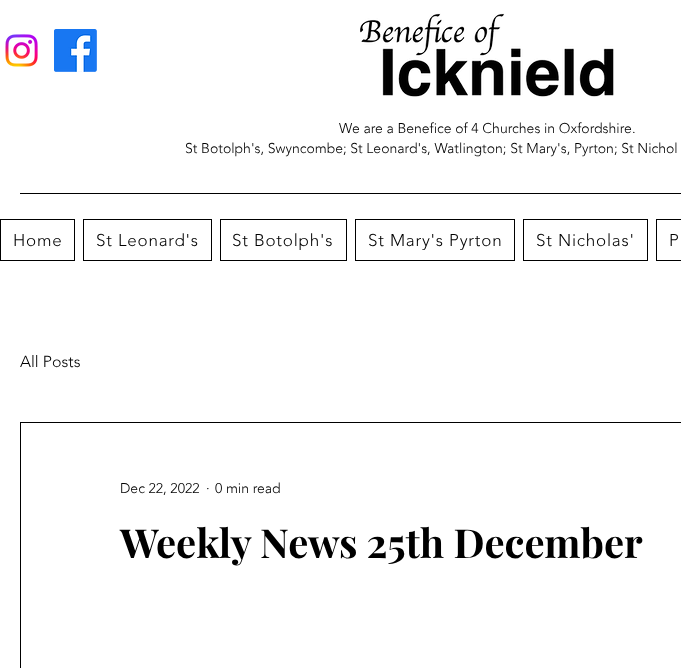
(async () => {
  const canvas = document.querySelector("canvas");
  canvas.width = 681;
  canvas.height = 668;
  const ctx = canvas.getContext("2d");
  ctx.miterLimit = 4;
  ctx.fontKerning = "normal";
  async function loadImage(src) {
    const img = new Image();
    img.src = src;
    await img.decode();
    return img;
  }

  ctx.fillStyle = "#ffffff";
  ctx.fillRect(0, 0, 681, 668);
  ctx.drawImage(await loadImage("img/1.png"), 5, 34, 33, 33);
  ctx.drawImage(await loadImage("img/2.png"), 54, 29, 43, 43);
  ctx.drawImage(await loadImage("img/3.png"), 360, 13, 254, 84);
  ctx.fillStyle = "#000000";
  ctx.fillRect(20, 193, 661, 1);
  ctx.strokeStyle = "#000000";
  ctx.strokeRect(0.5, 219.5, 74, 41);
  ctx.strokeRect(83.5, 219.5, 128, 41);
  ctx.strokeRect(220.5, 219.5, 126, 41);
  ctx.strokeRect(355.5, 219.5, 159, 41);
  ctx.strokeRect(523.5, 219.5, 124, 41);
  ctx.strokeRect(656.5, 219.5, 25, 41);
  ctx.strokeRect(20.5, 422.5, 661, 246);
  ctx.font = "300 14px 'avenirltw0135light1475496'";
  ctx.fillText("We are a Benefice of 4 Churches in Oxfordshire.", 339, 133);
  ctx.fillText("St Botolph's, Swyncombe; St Leonard's, Watlington; St Mary's, Pyrton; St Nichol", 185, 153);
  ctx.letterSpacing = "0.8px";
  ctx.font = "300 17px 'avenirltw0135light1475496'";
  for (const [text, x, y] of [
    ["Home", 13, 246],
    ["St Leonard's", 96, 246],
    ["St Botolph's", 232, 246],
    ["St Mary's Pyrton", 368, 246],
    ["St Nicholas'", 536, 246],
    ["P", 669, 246],
  ]) {
    ctx.fillText(text, x, y);
  }
  ctx.letterSpacing = "0px";
  ctx.font = "300 16px 'avenirltw0135light1475496'";
  ctx.fillText("All Posts", 20, 367);
  ctx.font = "300 14px 'avenirltw0135light1475496'";
  for (const [text, x, y] of [
    ["Dec 22, 2022", 120, 493],
    ["·", 206, 493],
    ["0 min read", 215, 493],
  ]) {
    ctx.fillText(text, x, y);
  }
  ctx.font = "bold 40px Playfair Display";
  ctx.fillText("Weekly News 25th December", 120, 558);
})();
